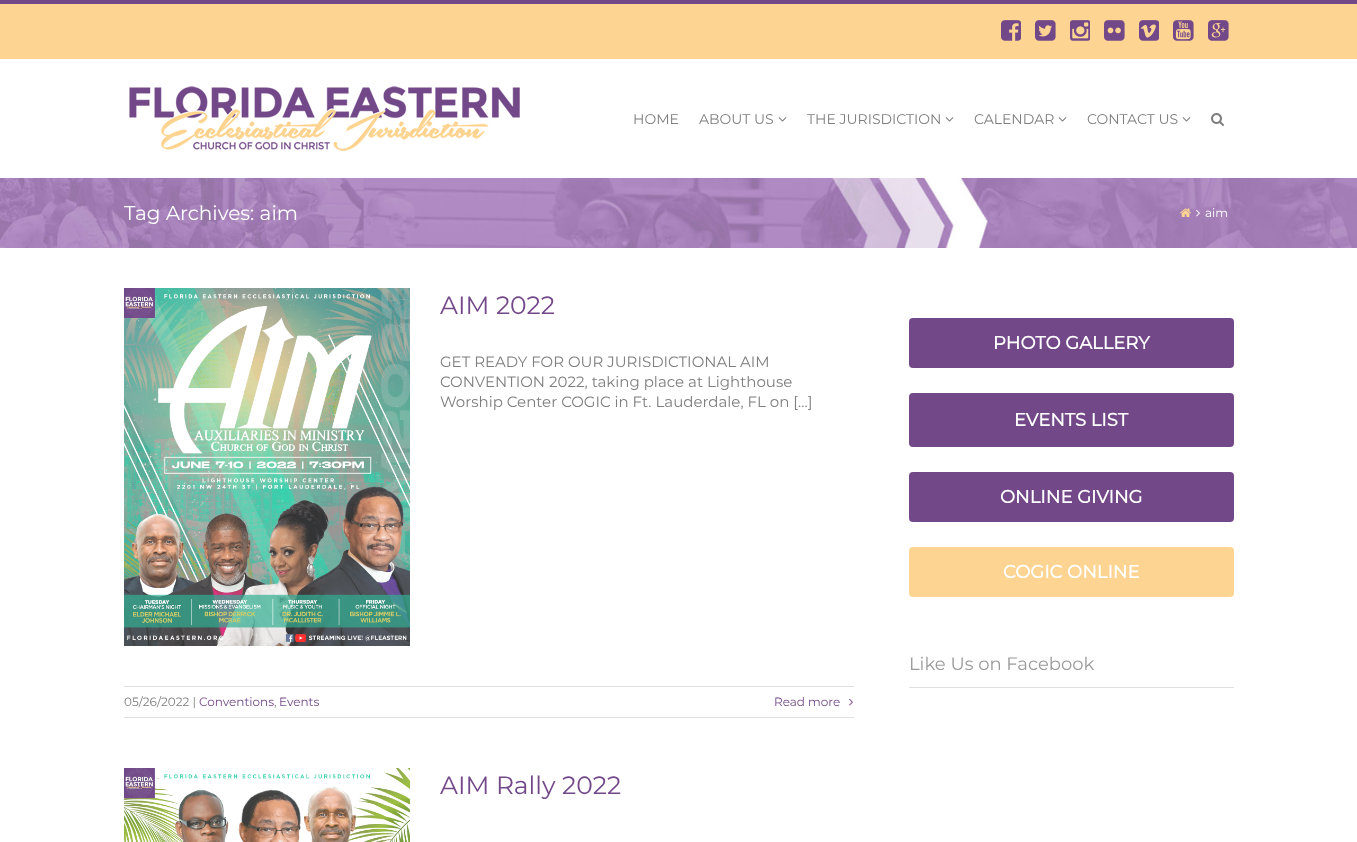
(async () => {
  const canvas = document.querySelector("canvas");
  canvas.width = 1357;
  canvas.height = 842;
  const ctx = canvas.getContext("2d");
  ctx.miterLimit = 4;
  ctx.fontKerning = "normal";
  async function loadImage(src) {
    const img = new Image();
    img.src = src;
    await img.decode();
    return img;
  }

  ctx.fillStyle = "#ffffff";
  ctx.fillRect(0, 0, 1357, 842);
  ctx.fillStyle = "#fdd491";
  ctx.fillRect(0, 4, 1357, 55);
  ctx.fillStyle = "#734889";
  ctx.fillRect(0, 0, 1357, 4);
  ctx.drawImage(await loadImage("img/1.png"), 1001, 20, 20, 21);
  ctx.drawImage(await loadImage("img/2.png"), 1035, 20, 21, 21);
  ctx.drawImage(await loadImage("img/3.png"), 1070, 20, 20, 21);
  ctx.drawImage(await loadImage("img/4.png"), 1104, 20, 21, 21);
  ctx.drawImage(await loadImage("img/5.png"), 1139, 20, 20, 21);
  ctx.drawImage(await loadImage("img/6.png"), 1173, 20, 21, 21);
  ctx.drawImage(await loadImage("img/7.png"), 1208, 20, 21, 21);
  ctx.drawImage(await loadImage("img/8.png"), 129, 86, 391, 65);
  ctx.drawImage(await loadImage("img/9.png"), 778, 117, 9, 5);
  ctx.drawImage(await loadImage("img/9.png"), 945, 117, 9, 5);
  ctx.drawImage(await loadImage("img/9.png"), 1058, 117, 9, 5);
  ctx.drawImage(await loadImage("img/9.png"), 1182, 117, 9, 5);
  ctx.drawImage(await loadImage("img/10.png"), 1211, 113, 13, 13);
  ctx.drawImage(await loadImage("img/11.png"), 0, 178, 1357, 70);
  ctx.drawImage(await loadImage("img/12.png"), 1180, 208, 11, 9);
  ctx.drawImage(await loadImage("img/13.png"), 1196, 209, 4, 8);
  ctx.drawImage(await loadImage("img/14.png"), 124, 288, 286, 358);
  ctx.fillStyle = "#dfdfdf";
  ctx.fillRect(124, 686, 730, 1);
  ctx.fillRect(124, 717, 730, 1);
  ctx.drawImage(await loadImage("img/15.png"), 849, 698, 4, 8);
  ctx.drawImage(await loadImage("img/16.png"), 124, 768, 286, 74);
  ctx.fillStyle = "#734889";
  ctx.beginPath();
  ctx.roundRect(909, 318, 325, 50, 4);
  ctx.fill();
  ctx.beginPath();
  ctx.roundRect(910, 394, 323, 52, 3);
  ctx.fill();
  ctx.strokeStyle = "#734889";
  ctx.lineWidth = 2;
  ctx.stroke();
  ctx.beginPath();
  ctx.roundRect(909, 472, 325, 50, 4);
  ctx.fill();
  ctx.fillStyle = "#fdd491";
  ctx.beginPath();
  ctx.roundRect(909, 547, 325, 50, 4);
  ctx.fill();
  ctx.fillStyle = "#dfdfdf";
  ctx.fillRect(909, 687, 325, 1);
  ctx.font = "100 14px Montserrat";
  ctx.fillStyle = "#7e7e7e";
  for (const [text, x, y] of [
    ["HOME", 633, 124],
    ["ABOUT US", 699, 124],
    ["THE JURISDICTION", 807, 124],
    ["CALENDAR", 974, 124],
    ["CONTACT US", 1087, 124],
  ]) {
    ctx.fillText(text, x, y);
  }
  ctx.font = "100 20px Montserrat";
  ctx.fillStyle = "#ffffff";
  ctx.fillText("Tag Archives: aim", 124, 220);
  ctx.font = "100 12px Montserrat";
  ctx.fillText("aim", 1205, 217);
  ctx.font = "100 25px Montserrat";
  ctx.fillStyle = "#734889";
  ctx.fillText("AIM 2022", 440, 314);
  ctx.font = "100 15px Montserrat";
  ctx.fillStyle = "#7e7e7e";
  for (const [text, x, y] of [
    ["GET READY FOR OUR JURISDICTIONAL AIM", 440, 367],
    ["CONVENTION 2022, taking place at Lighthouse", 440, 387],
    ["Worship Center COGIC in Ft. Lauderdale, FL on […]", 440, 407],
  ]) {
    ctx.fillText(text, x, y);
  }
  ctx.font = "100 12px Montserrat";
  ctx.fillText("05/26/2022 |", 124, 706);
  ctx.fillStyle = "#734889";
  ctx.fillText("Conventions", 199, 706);
  ctx.fillStyle = "#7e7e7e";
  ctx.fillText(",", 274, 706);
  ctx.fillStyle = "#734889";
  ctx.fillText("Events", 279, 706);
  ctx.fillText("Read more", 774, 706);
  ctx.font = "100 25px Montserrat";
  ctx.fillText("AIM Rally 2022", 440, 794);
  ctx.font = "bold 18px Montserrat";
  ctx.fillStyle = "#ffffff";
  for (const [text, x, y] of [
    ["PHOTO GALLERY", 993, 349],
    ["EVENTS LIST", 1014, 426],
    ["ONLINE GIVING", 1000, 503],
    ["COGIC ONLINE", 1003, 578],
  ]) {
    ctx.fillText(text, x, y);
  }
  ctx.font = "100 18px Montserrat";
  ctx.fillStyle = "#9a9a9a";
  ctx.fillText("Like Us on Facebook", 909, 670);
})();
